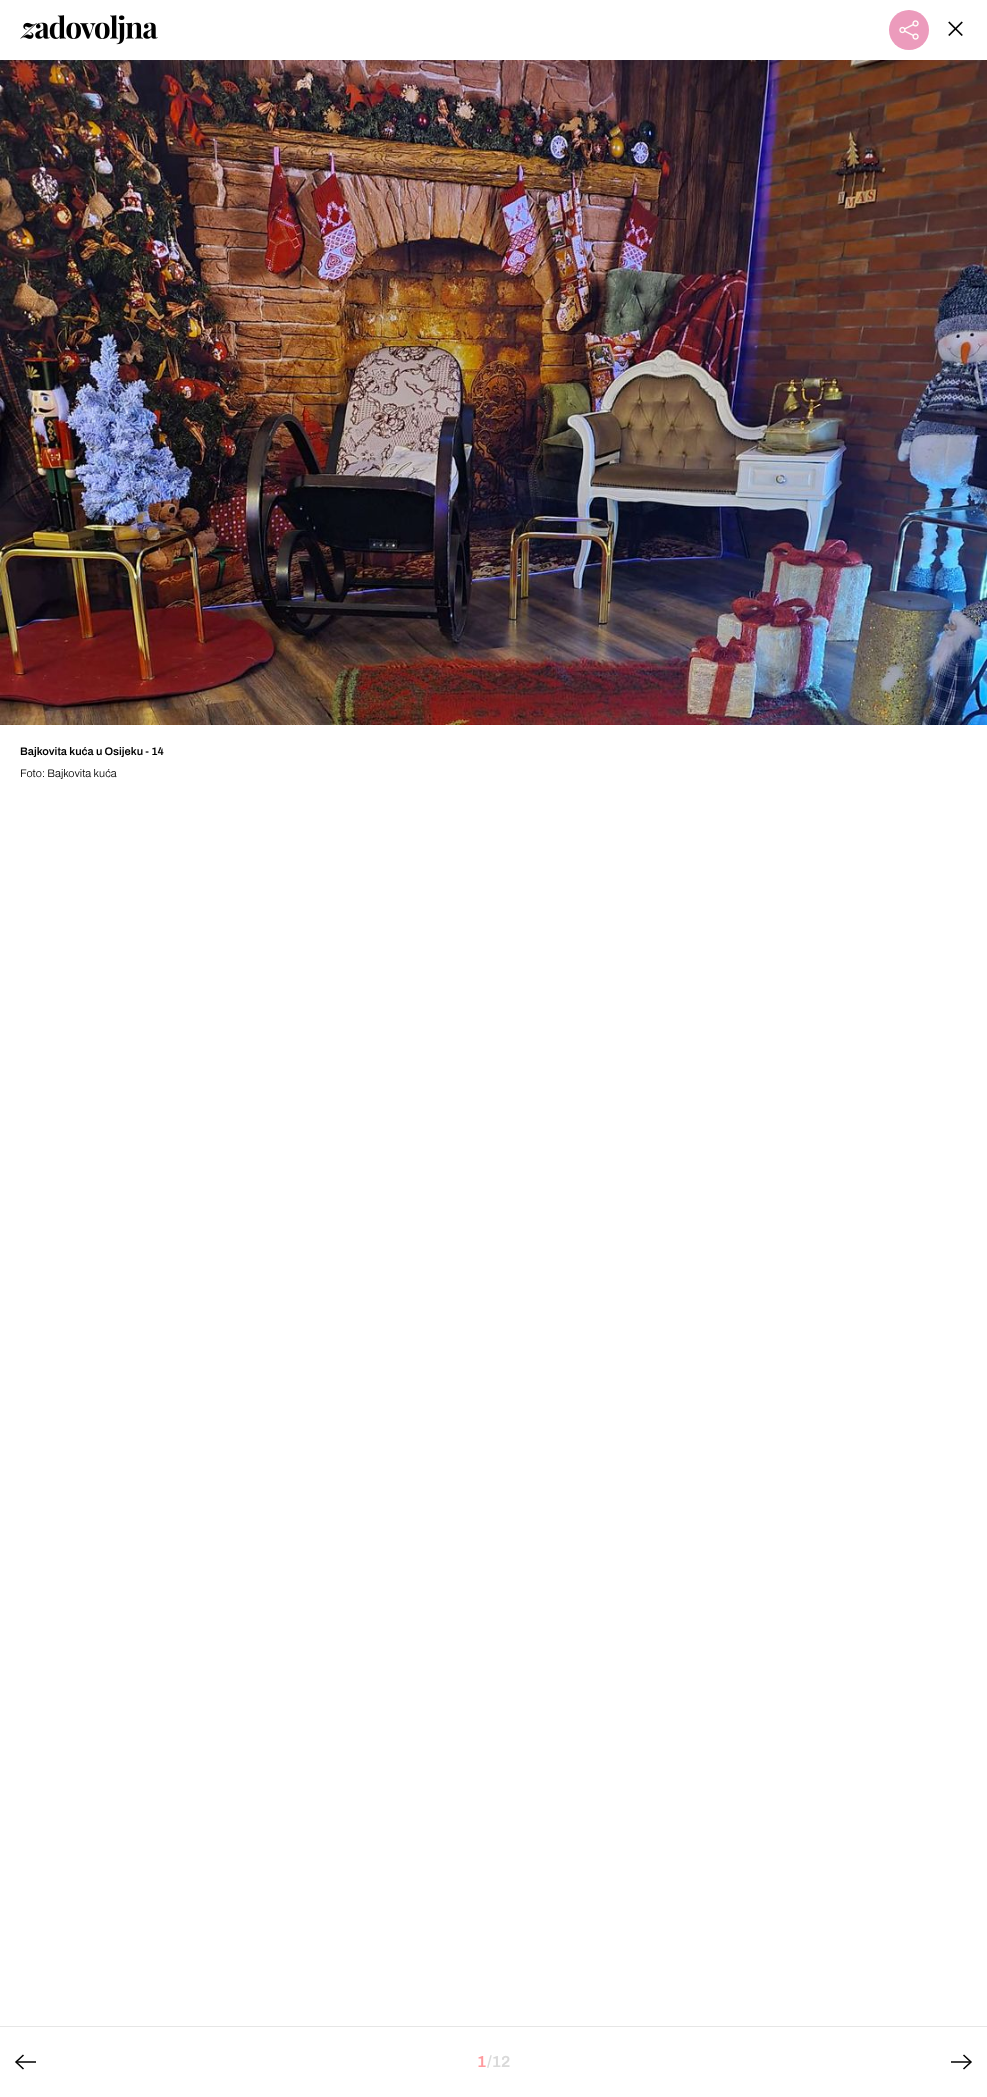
(async () => {
  const canvas = document.querySelector("canvas");
  canvas.width = 987;
  canvas.height = 2097;
  const ctx = canvas.getContext("2d");
  ctx.miterLimit = 4;
  ctx.fontKerning = "normal";
  async function loadImage(src) {
    const img = new Image();
    img.src = src;
    await img.decode();
    return img;
  }
  let path;

  ctx.fillStyle = "#ffffff";
  ctx.fillRect(0, 0, 987, 2097);
  ctx.drawImage(await loadImage("img/1.png"), 20, 15, 138, 30);
  ctx.fillStyle = "#ec9bbc";
  ctx.beginPath();
  ctx.arc(909, 30, 20, 0, Math.PI * 2);
  ctx.fill();
  ctx.drawImage(await loadImage("img/2.png"), 899, 20, 20, 20);
  ctx.drawImage(await loadImage("img/3.png"), 948, 21, 15, 15);
  ctx.drawImage(await loadImage("img/4.png"), 0, 60, 987, 665);
  ctx.fillStyle = "#e6e6e6";
  ctx.fillRect(0, 2026, 987, 1);
  ctx.fillStyle = "#404040";
  ctx.fillRect(16, 2061, 20, 2);
  path = new Path2D("M23.5 2055L16 2062L23.5 2069");
  ctx.strokeStyle = "#000000";
  ctx.lineWidth = 1.5;
  ctx.stroke(path);
  ctx.fillRect(951, 2061, 20, 2);
  path = new Path2D("M963.5 2055L971 2062L963.5 2069");
  ctx.stroke(path);
  ctx.font = "600 11px Archivo";
  ctx.fillStyle = "#000000";
  ctx.fillText("Bajkovita kuća u Osijeku - 14", 20, 755);
  ctx.font = "300 11px Archivo";
  ctx.fillText("Foto: Bajkovita kuća", 20, 777);
  ctx.font = "600 16px Archivo";
  ctx.fillStyle = "#ff999d";
  ctx.fillText("1", 477, 2067);
  ctx.fillStyle = "#d9d9d9";
  ctx.fillText("/12", 487, 2067);
})();
